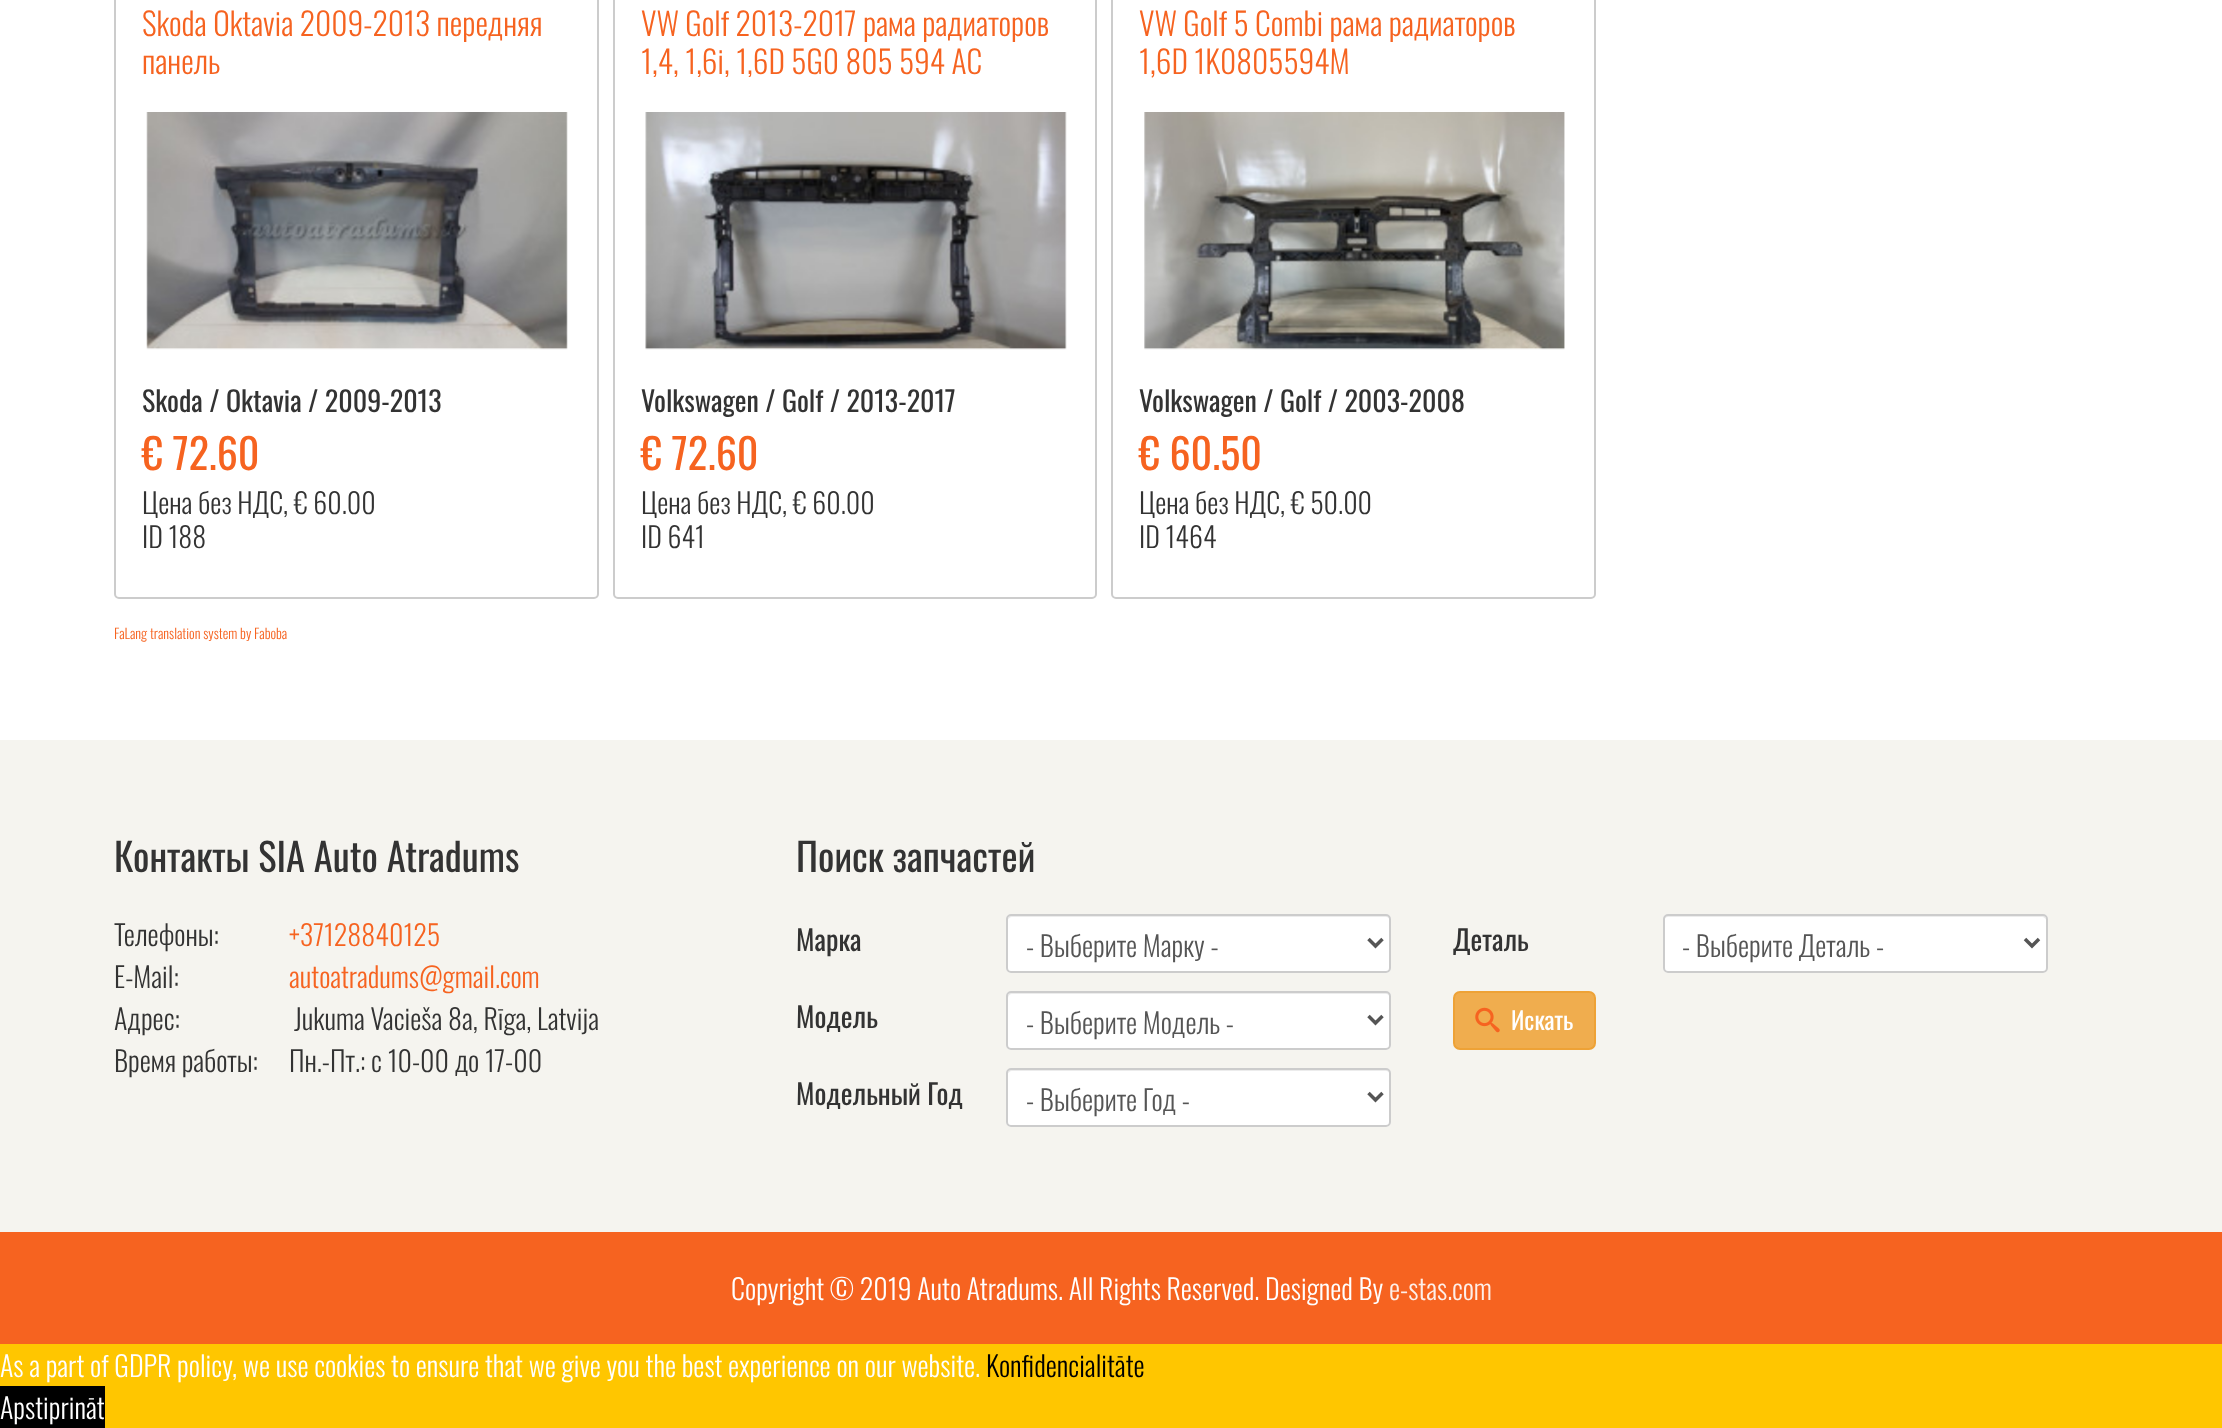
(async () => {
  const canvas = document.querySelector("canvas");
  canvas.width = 2222;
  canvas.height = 1428;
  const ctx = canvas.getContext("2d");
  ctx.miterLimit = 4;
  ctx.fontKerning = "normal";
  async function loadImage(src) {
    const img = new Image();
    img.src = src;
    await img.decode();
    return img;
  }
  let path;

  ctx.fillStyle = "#ffffff";
  ctx.fillRect(0, 0, 2222, 1428);
  ctx.beginPath();
  ctx.roundRect(115, -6, 483, 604, 4);
  ctx.strokeStyle = "#cccccc";
  ctx.lineWidth = 2;
  ctx.stroke();
  ctx.drawImage(await loadImage("img/1.png"), 146, 112, 422, 238);
  ctx.beginPath();
  ctx.roundRect(614, -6, 482, 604, 4);
  ctx.stroke();
  ctx.drawImage(await loadImage("img/2.png"), 645, 112, 422, 238);
  ctx.beginPath();
  ctx.roundRect(1112, -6, 483, 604, 4);
  ctx.stroke();
  ctx.drawImage(await loadImage("img/3.png"), 1144, 112, 421, 238);
  ctx.fillStyle = "#f5f4ef";
  ctx.fillRect(0, 740, 2222, 492);
  ctx.fillStyle = "#ffffff";
  ctx.beginPath();
  ctx.roundRect(1006, 914, 385, 59, 5);
  ctx.fill();
  ctx.fillStyle = "#ececec";
  path = new Path2D("M1012 917H1386C1388 917 1390 919 1390 920C1390 917 1389 915 1386 915H1012C1009 915 1008 917 1008 920C1008 919 1010 917 1012 917Z");
  ctx.fill(path);
  ctx.beginPath();
  ctx.roundRect(1007, 915, 383, 57, 4);
  ctx.stroke();
  path = new Path2D("M1368.5 939L1375.5 946L1382.5 939");
  ctx.strokeStyle = "#555555";
  ctx.lineWidth = 3.5;
  ctx.stroke(path);
  ctx.fillStyle = "#ffffff";
  ctx.beginPath();
  ctx.roundRect(1006, 991, 385, 59, 5);
  ctx.fill();
  ctx.fillStyle = "#ececec";
  path = new Path2D("M1012 994H1386C1388 994 1390 996 1390 998V996C1390 994 1388 992 1386 992H1012C1010 992 1008 994 1008 996V998C1008 996 1010 994 1012 994Z");
  ctx.fill(path);
  ctx.beginPath();
  ctx.roundRect(1007, 992, 383, 57, 4);
  ctx.strokeStyle = "#cccccc";
  ctx.lineWidth = 2;
  ctx.stroke();
  path = new Path2D("M1368.5 1016L1375.5 1023L1382.5 1016");
  ctx.strokeStyle = "#555555";
  ctx.lineWidth = 3.5;
  ctx.stroke(path);
  ctx.fillStyle = "#ffffff";
  ctx.beginPath();
  ctx.roundRect(1006, 1068, 385, 59, 5);
  ctx.fill();
  ctx.fillStyle = "#ececec";
  path = new Path2D("M1012 1071H1386C1388 1071 1390 1073 1390 1074C1390 1071 1389 1069 1386 1069H1012C1009 1069 1008 1071 1008 1074C1008 1073 1010 1071 1012 1071Z");
  ctx.fill(path);
  ctx.beginPath();
  ctx.roundRect(1007, 1069, 383, 57, 4);
  ctx.strokeStyle = "#cccccc";
  ctx.lineWidth = 2;
  ctx.stroke();
  path = new Path2D("M1368.5 1093L1375.5 1100L1382.5 1093");
  ctx.strokeStyle = "#555555";
  ctx.lineWidth = 3.5;
  ctx.stroke(path);
  ctx.fillStyle = "#ffffff";
  ctx.beginPath();
  ctx.roundRect(1663, 914, 385, 59, 5);
  ctx.fill();
  ctx.fillStyle = "#ececec";
  path = new Path2D("M1668 917H2042C2044 917 2046 919 2046 920C2046 917 2045 915 2042 915H1668C1665 915 1664 917 1664 920C1664 919 1666 917 1668 917Z");
  ctx.fill(path);
  ctx.beginPath();
  ctx.roundRect(1664, 915, 383, 57, 4);
  ctx.strokeStyle = "#cccccc";
  ctx.lineWidth = 2;
  ctx.stroke();
  path = new Path2D("M2025 939L2032 946L2039 939");
  ctx.strokeStyle = "#555555";
  ctx.lineWidth = 3.5;
  ctx.stroke(path);
  ctx.fillStyle = "#f0ad4e";
  ctx.beginPath();
  ctx.roundRect(1454, 992, 141, 57, 6);
  ctx.fill();
  ctx.strokeStyle = "#eea236";
  ctx.lineWidth = 2;
  ctx.stroke();
  ctx.drawImage(await loadImage("img/4.png"), 1475, 1007, 25, 26);
  for (const [x, y, w, h, color] of [
    [0, 1232, 2222, 112, "#f66320"],
    [0, 1344, 2222, 84, "#ffc600"],
    [0, 1386, 105, 42, "#000000"],
  ]) {
    ctx.fillStyle = color;
    ctx.fillRect(x, y, w, h);
  }
  ctx.font = "300 31.5px Oswald";
  ctx.fillStyle = "#f66320";
  ctx.fillText("Skoda Oktavia 2009-2013 передняя", 142, 36);
  ctx.fillText("панель", 142, 74);
  ctx.font = "28px Oswald";
  ctx.fillStyle = "#333333";
  ctx.fillText("Skoda / Oktavia / 2009-2013", 142, 412);
  ctx.font = "42px Oswald";
  ctx.fillStyle = "#f66320";
  ctx.fillText("€ 72.60", 142, 470);
  ctx.font = "300 28px Oswald";
  ctx.fillStyle = "#333333";
  ctx.fillText("Цена без НДС, € 60.00", 142, 514);
  ctx.fillText("ID 188", 142, 548);
  ctx.font = "300 31.5px Oswald";
  ctx.fillStyle = "#f66320";
  ctx.fillText("VW Golf 2013-2017 рама радиаторов", 641, 36);
  ctx.save();
  ctx.beginPath();
  ctx.rect(641, 0, 428, 77);
  ctx.clip();
  ctx.fillText("1,4, 1,6i, 1,6D 5G0 805 594 AC", 641, 74);
  ctx.restore();
  ctx.font = "28px Oswald";
  ctx.fillStyle = "#333333";
  ctx.fillText("Volkswagen / Golf / 2013-2017", 641, 412);
  ctx.font = "42px Oswald";
  ctx.fillStyle = "#f66320";
  ctx.fillText("€ 72.60", 641, 470);
  ctx.font = "300 28px Oswald";
  ctx.fillStyle = "#333333";
  ctx.fillText("Цена без НДС, € 60.00", 641, 514);
  ctx.fillText("ID 641", 641, 548);
  ctx.font = "300 31.5px Oswald";
  ctx.fillStyle = "#f66320";
  ctx.fillText("VW Golf 5 Combi рама радиаторов", 1139, 36);
  ctx.fillText("1,6D 1K0805594M", 1139, 74);
  ctx.font = "28px Oswald";
  ctx.fillStyle = "#333333";
  ctx.fillText("Volkswagen / Golf / 2003-2008", 1139, 412);
  ctx.font = "42px Oswald";
  ctx.fillStyle = "#f66320";
  ctx.fillText("€ 60.50", 1139, 470);
  ctx.font = "300 28px Oswald";
  ctx.fillStyle = "#333333";
  ctx.fillText("Цена без НДС, € 50.00", 1139, 514);
  ctx.fillText("ID 1464", 1139, 548);
  ctx.font = "300 14px Oswald";
  ctx.fillStyle = "#f66320";
  ctx.fillText("FaLang translation system by Faboba", 114, 639);
  ctx.font = "38.5px Oswald";
  ctx.fillStyle = "#333333";
  ctx.fillText("Контакты SIA Auto Atradums", 114, 872);
  ctx.font = "300 28px Oswald";
  ctx.fillText("Телефоны:", 114, 946);
  ctx.fillStyle = "#f66320";
  ctx.fillText("+37128840125", 289, 946);
  ctx.fillStyle = "#333333";
  ctx.fillText("E-Mail:", 114, 988);
  ctx.fillStyle = "#f66320";
  ctx.fillText("autoatradums@gmail.com", 289, 988);
  ctx.fillStyle = "#333333";
  for (const [text, x, y] of [
    ["Адрес:", 114, 1030],
    ["Jukuma Vacieša 8a, Rīga, Latvija", 294, 1030],
    ["Время работы:", 114, 1072],
    ["Пн.-Пт.: с 10-00 до 17-00", 289, 1072],
  ]) {
    ctx.fillText(text, x, y);
  }
  ctx.font = "38.5px Oswald";
  ctx.fillText("Поиск запчастей", 796, 872);
  ctx.font = "28px Oswald";
  ctx.fillText("Марка", 796, 951);
  ctx.font = "300 28px Oswald";
  ctx.fillStyle = "#555555";
  ctx.fillText("- Выберите Марку -", 1026, 957);
  ctx.font = "28px Oswald";
  ctx.fillStyle = "#333333";
  ctx.fillText("Модель", 796, 1028);
  ctx.font = "300 28px Oswald";
  ctx.fillStyle = "#555555";
  ctx.fillText("- Выберите Модель -", 1026, 1034);
  ctx.font = "28px Oswald";
  ctx.fillStyle = "#333333";
  ctx.fillText("Модельный Год", 796, 1105);
  ctx.font = "300 28px Oswald";
  ctx.fillStyle = "#555555";
  ctx.fillText("- Выберите Год -", 1026, 1111);
  ctx.font = "28px Oswald";
  ctx.fillStyle = "#333333";
  ctx.fillText("Деталь", 1453, 951);
  ctx.font = "300 28px Oswald";
  ctx.fillStyle = "#555555";
  ctx.fillText("- Выберите Деталь -", 1682, 957);
  ctx.font = "24.5px Oswald";
  ctx.fillStyle = "#ffffff";
  ctx.fillText("Искать", 1511, 1030);
  ctx.font = "300 28px Oswald";
  ctx.fillText("Copyright © 2019 Auto Atradums. All Rights Reserved. Designed By", 731, 1300);
  ctx.fillStyle = "#feefe9";
  ctx.fillText("e-stas.com", 1389, 1300);
  ctx.fillStyle = "#ffffff";
  ctx.fillText("As a part of GDPR policy, we use cookies to ensure that we give you the best experience on our website.", 0, 1377);
  ctx.fillStyle = "#000000";
  ctx.fillText("Konfidencialitāte", 986, 1377);
  ctx.fillStyle = "#ffffff";
  ctx.fillText("Apstiprināt", 0, 1419);
})();
